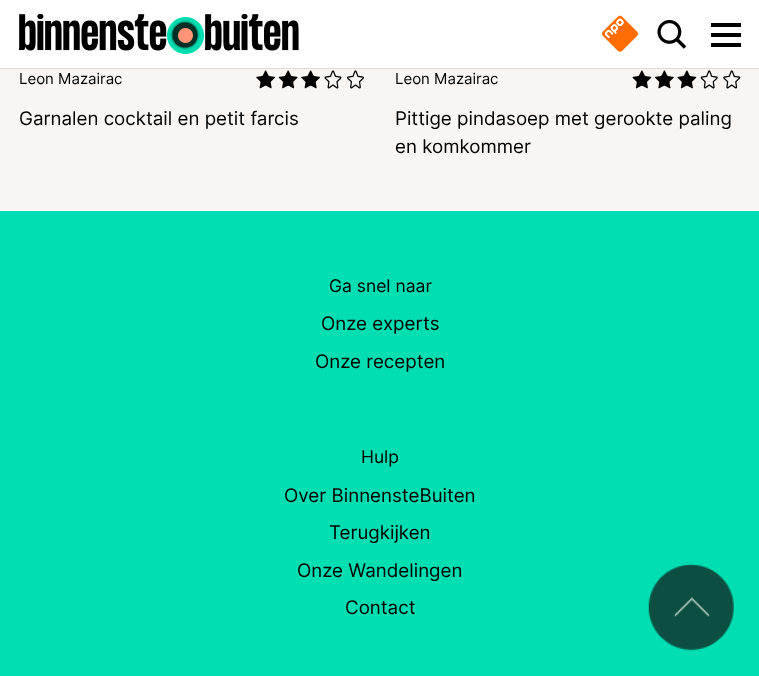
(async () => {
  const canvas = document.querySelector("canvas");
  canvas.width = 759;
  canvas.height = 676;
  const ctx = canvas.getContext("2d");
  ctx.miterLimit = 4;
  ctx.fontKerning = "normal";
  async function loadImage(src) {
    const img = new Image();
    img.src = src;
    await img.decode();
    return img;
  }

  ctx.fillStyle = "#f8f5f2";
  ctx.fillRect(0, 0, 759, 676);
  ctx.drawImage(await loadImage("img/4.png"), 256, 70, 19, 19);
  ctx.drawImage(await loadImage("img/5.png"), 278, 70, 20, 19);
  ctx.drawImage(await loadImage("img/4.png"), 301, 70, 19, 19);
  ctx.drawImage(await loadImage("img/6.png"), 324, 70, 18, 19);
  ctx.drawImage(await loadImage("img/7.png"), 347, 70, 17, 19);
  ctx.drawImage(await loadImage("img/8.png"), 632, 70, 20, 19);
  ctx.drawImage(await loadImage("img/9.png"), 655, 70, 19, 19);
  ctx.drawImage(await loadImage("img/8.png"), 677, 70, 20, 19);
  ctx.drawImage(await loadImage("img/10.png"), 700, 70, 18, 19);
  ctx.drawImage(await loadImage("img/11.png"), 723, 70, 18, 19);
  ctx.fillStyle = "rgba(0, 0, 0, 0.1)";
  ctx.filter = "blur(0.5px)";
  ctx.beginPath();
  ctx.rect(0, 1, 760, 68);
  ctx.fill();
  ctx.filter = "none";
  ctx.fillStyle = "#ffffff";
  ctx.fillRect(0, 0, 759, 68);
  ctx.drawImage(await loadImage("img/1.png"), 19, 14, 280, 40);
  ctx.drawImage(await loadImage("img/2.png"), 602, 15, 36, 37);
  ctx.drawImage(await loadImage("img/3.png"), 657, 20, 30, 29);
  for (const [x, y, w, h, color] of [
    [711, 33, 30, 4, "#000000"],
    [711, 23, 30, 4, "#000000"],
    [711, 43, 30, 4, "#000000"],
    [0, 211, 759, 465, "#00deb2"],
  ]) {
    ctx.fillStyle = color;
    ctx.fillRect(x, y, w, h);
  }
  ctx.drawImage(await loadImage("img/12.png"), 648, 563, 86, 88);
  ctx.font = "15px Inter";
  ctx.fillStyle = "#000000";
  ctx.fillText("Leon Mazairac", 19, 84);
  ctx.font = "18.75px Inter";
  ctx.fillText("Garnalen cocktail en petit farcis", 19, 125);
  ctx.font = "15px Inter";
  ctx.fillText("Leon Mazairac", 395, 84);
  ctx.font = "18.75px Inter";
  ctx.fillText("Pittige pindasoep met gerookte paling", 395, 125);
  ctx.fillText("en komkommer", 395, 153);
  ctx.font = "17.5px Inter";
  ctx.fillText("Ga snel naar", 329, 292);
  ctx.font = "18.75px Inter";
  ctx.fillText("Onze experts", 321, 330);
  ctx.fillText("Onze recepten", 315, 368);
  ctx.font = "17.5px Inter";
  ctx.fillText("Hulp", 361, 463);
  ctx.font = "18.75px Inter";
  for (const [text, x, y] of [
    ["Over BinnensteBuiten", 284, 502],
    ["Terugkijken", 329, 539],
    ["Onze Wandelingen", 297, 577],
    ["Contact", 345, 614],
  ]) {
    ctx.fillText(text, x, y);
  }
})();
